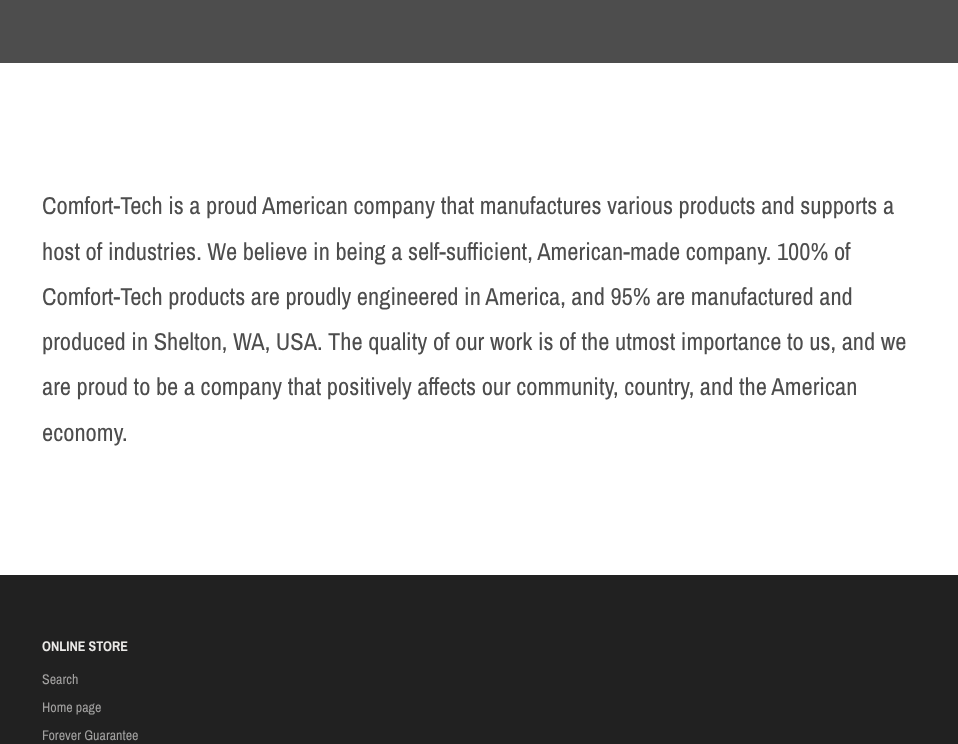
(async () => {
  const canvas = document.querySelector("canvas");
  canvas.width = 958;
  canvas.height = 744;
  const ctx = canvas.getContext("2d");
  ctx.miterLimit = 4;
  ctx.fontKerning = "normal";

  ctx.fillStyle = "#ffffff";
  ctx.fillRect(0, 0, 958, 744);
  ctx.fillStyle = "#4d4d4d";
  ctx.fillRect(0, 0, 958, 63);
  ctx.fillStyle = "#212121";
  ctx.fillRect(0, 575, 958, 169);
  ctx.font = "24.5px Archivo Narrow";
  ctx.fillStyle = "#4d4d4d";
  for (const [text, x, y] of [
    ["Comfort-Tech is a proud American company that manufactures various products and supports a", 42, 214],
    ["host of industries. We believe in being a self-sufficient, American-made company. 100% of", 42, 260],
    ["Comfort-Tech products are proudly engineered in America, and 95% are manufactured and", 42, 305],
    ["produced in Shelton, WA, USA. The quality of our work is of the utmost importance to us, and we", 42, 350],
    ["are proud to be a company that positively affects our community, country, and the American", 42, 395],
    ["economy.", 42, 441],
  ]) {
    ctx.fillText(text, x, y);
  }
  ctx.font = "bold 14px Archivo Narrow";
  ctx.fillStyle = "#eae9e7";
  ctx.fillText("ONLINE STORE", 42, 651);
  ctx.font = "14px Archivo Narrow";
  ctx.fillStyle = "#a2a1a0";
  for (const [text, x, y] of [
    ["Search", 42, 684],
    ["Home page", 42, 712],
    ["Forever Guarantee", 42, 740],
  ]) {
    ctx.fillText(text, x, y);
  }
})();
